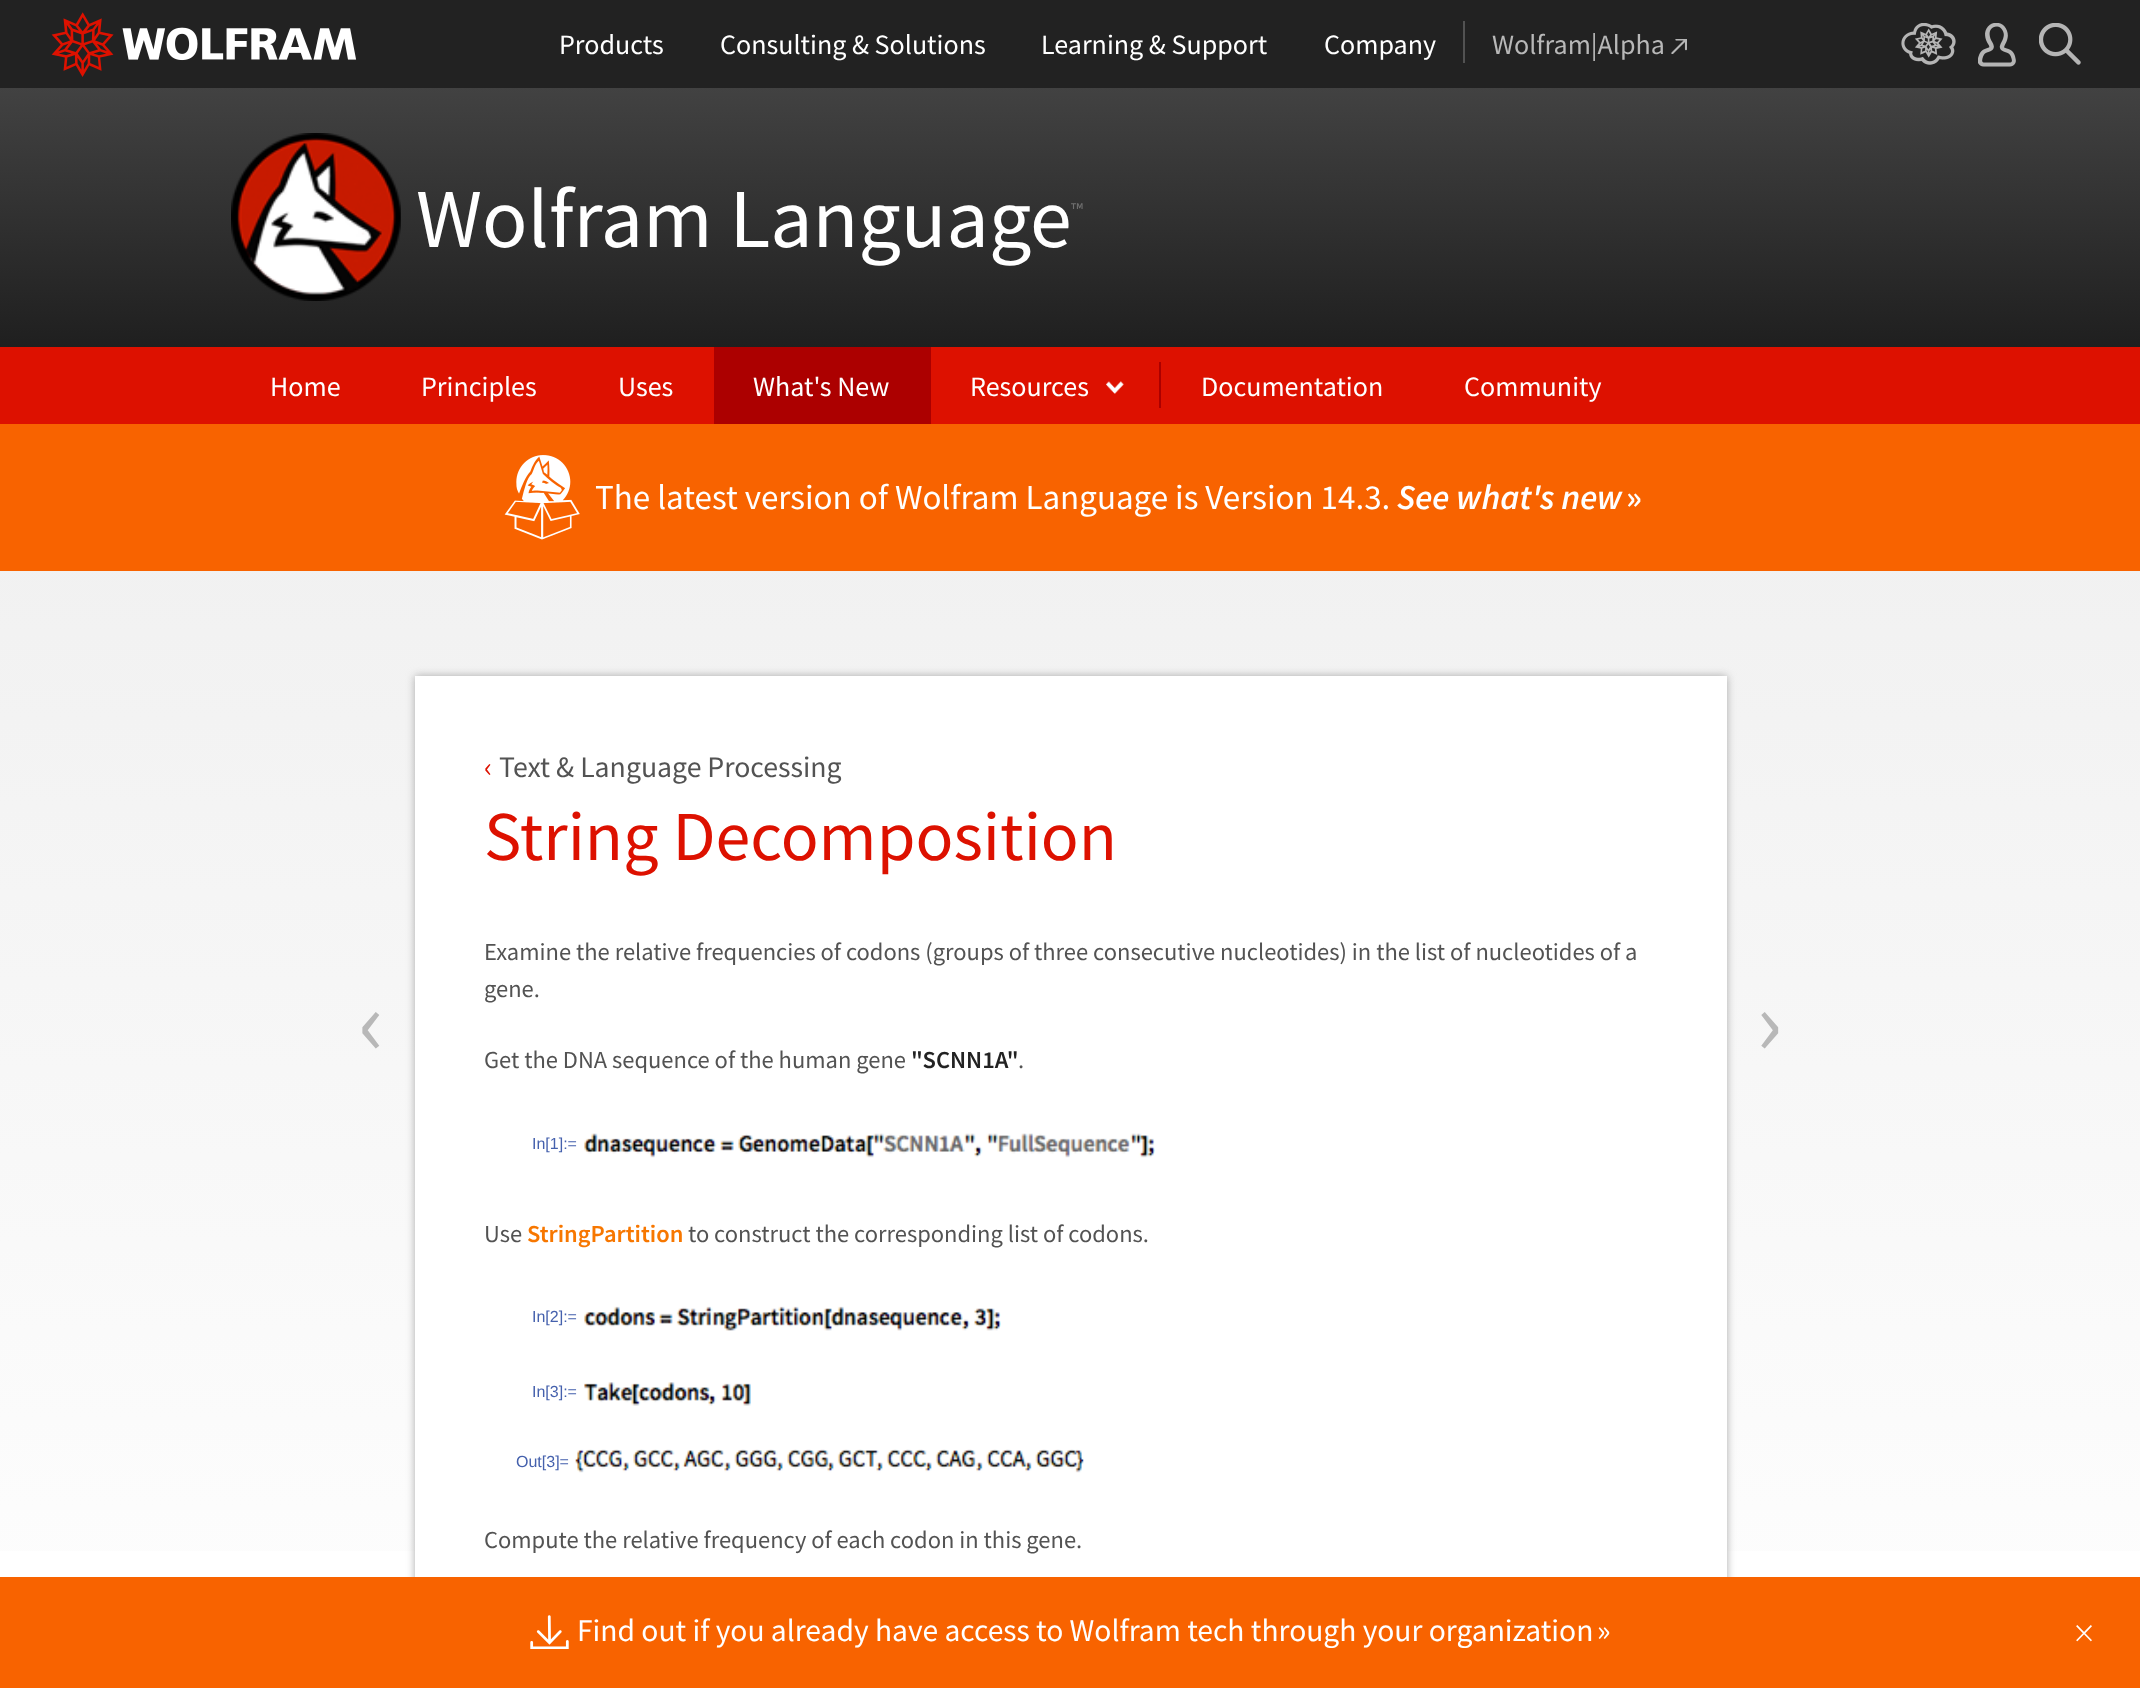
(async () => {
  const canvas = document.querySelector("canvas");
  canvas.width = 2140;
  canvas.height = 1688;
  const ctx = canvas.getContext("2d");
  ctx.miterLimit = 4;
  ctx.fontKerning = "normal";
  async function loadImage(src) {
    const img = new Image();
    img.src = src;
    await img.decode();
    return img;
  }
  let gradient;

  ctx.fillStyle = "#ffffff";
  ctx.fillRect(0, 0, 2140, 1688);
  gradient = ctx.createLinearGradient(1070, 0, 1070, 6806);
  gradient.addColorStop(0, "#f1f1f1");
  gradient.addColorStop(0.08, "#f1f1f1");
  gradient.addColorStop(0.26, "#ffffff");
  gradient.addColorStop(1, "#ffffff");
  ctx.fillStyle = gradient;
  ctx.fillRect(0, 571, 2140, 980);
  ctx.fillStyle = "#222222";
  ctx.fillRect(0, 0, 2140, 88);
  ctx.drawImage(await loadImage("img/1.png"), 51, 12, 306, 65);
  ctx.fillStyle = "#525252";
  ctx.fillRect(1463, 21, 2, 42);
  ctx.drawImage(await loadImage("img/2.png"), 1671, 39, 16, 15);
  ctx.drawImage(await loadImage("img/3.png"), 1901, 23, 55, 42);
  ctx.drawImage(await loadImage("img/4.png"), 1978, 23, 38, 44);
  ctx.drawImage(await loadImage("img/5.png"), 2039, 23, 42, 42);
  gradient = ctx.createLinearGradient(1070, 87, 1070, 424);
  gradient.addColorStop(0, "#424242");
  gradient.addColorStop(1, "#151515");
  ctx.fillStyle = gradient;
  ctx.fillRect(0, 88, 2140, 259);
  ctx.drawImage(await loadImage("img/6.png"), 231, 133, 170, 168);
  ctx.fillStyle = "#dd1100";
  ctx.fillRect(0, 347, 2140, 77);
  ctx.fillStyle = "#ac0000";
  ctx.fillRect(714, 347, 217, 77);
  ctx.drawImage(await loadImage("img/7.png"), 1106, 381, 18, 13);
  ctx.fillRect(1159, 362, 2, 46);
  ctx.fillStyle = "#f86300";
  ctx.fillRect(0, 424, 2140, 147);
  ctx.drawImage(await loadImage("img/8.png"), 504, 455, 76, 85);
  ctx.fillStyle = "#aaaaaa";
  ctx.filter = "blur(4.5px)";
  ctx.beginPath();
  ctx.rect(415, 676, 1312, 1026);
  ctx.fill();
  ctx.filter = "none";
  ctx.fillStyle = "#ffffff";
  ctx.fillRect(415, 676, 1312, 901);
  ctx.drawImage(await loadImage("img/9.png"), 584, 1133, 571, 25);
  ctx.drawImage(await loadImage("img/10.png"), 584, 1306, 417, 25);
  ctx.drawImage(await loadImage("img/11.png"), 584, 1382, 167, 24);
  ctx.drawImage(await loadImage("img/12.png"), 575, 1449, 509, 24);
  ctx.fillStyle = "#f86300";
  ctx.fillRect(0, 1577, 2140, 111);
  ctx.drawImage(await loadImage("img/13.png"), 530, 1615, 39, 34);
  ctx.font = "28px Source Sans Pro";
  ctx.fillStyle = "#ffffff";
  for (const [text, x, y] of [
    ["Products", 559, 54],
    ["Consulting & Solutions", 720, 54],
    ["Learning & Support", 1041, 54],
    ["Company", 1324, 54],
  ]) {
    ctx.fillText(text, x, y);
  }
  ctx.fillStyle = "#b8b8b8";
  ctx.fillText("Wolfram|Alpha", 1492, 54);
  ctx.font = "84px Source Sans Pro";
  ctx.fillStyle = "#ffffff";
  ctx.fillText("Wolfram Language", 416, 247);
  ctx.font = "19px Source Sans Pro";
  ctx.fillStyle = "#707070";
  ctx.fillText("™", 1071, 216);
  ctx.font = "28px Source Sans Pro";
  ctx.fillStyle = "#ffffff";
  for (const [text, x, y] of [
    ["Home", 270, 396],
    ["Principles", 421, 396],
    ["Uses", 618, 396],
    ["What's New", 753, 396],
    ["Resources", 970, 396],
    ["Documentation", 1201, 396],
    ["Community", 1464, 396],
  ]) {
    ctx.fillText(text, x, y);
  }
  ctx.font = "35px Source Sans Pro";
  ctx.fillText("The latest version of Wolfram Language is Version 14.3.", 595, 509);
  ctx.font = "italic 600 35px Source Sans Pro";
  ctx.fillText("See what's new", 1397, 509);
  ctx.font = "600 35px Source Sans Pro";
  ctx.fillText("»", 1626, 509);
  ctx.font = "29.75px Source Sans Pro";
  ctx.fillStyle = "#dd1100";
  ctx.fillText("‹", 484, 777);
  ctx.fillStyle = "#535353";
  ctx.fillText("Text & Language Processing", 499, 777);
  ctx.font = "70px Source Sans Pro";
  ctx.fillStyle = "#dd1100";
  ctx.fillText("String Decomposition", 484, 860);
  ctx.font = "24.5px Source Sans Pro";
  ctx.fillStyle = "#535353";
  ctx.fillText("Examine the relative frequencies of codons (groups of three consecutive nucleotides) in the list of nucleotides of a", 484, 960);
  ctx.fillText("gene.", 484, 997);
  ctx.font = "98px Source Sans Pro";
  ctx.fillStyle = "#b8b8b8";
  ctx.fillText("‹", 358, 1055);
  ctx.fillText("›", 1756, 1055);
  ctx.font = "24.5px Source Sans Pro";
  ctx.fillStyle = "#535353";
  ctx.fillText("Get the DNA sequence of the human gene", 484, 1068);
  ctx.font = "600 24.5px Source Sans Pro";
  ctx.fillStyle = "#222222";
  ctx.fillText("\"SCNN1A\"", 911, 1068);
  ctx.font = "24.5px Source Sans Pro";
  ctx.fillStyle = "#535353";
  ctx.fillText(".", 1018, 1068);
  ctx.font = "16px Liberation Sans";
  ctx.fillStyle = "#4561ad";
  ctx.fillText("In[1]:=", 532, 1149);
  ctx.font = "24.5px Source Sans Pro";
  ctx.fillStyle = "#535353";
  ctx.fillText("Use", 484, 1242);
  ctx.font = "600 24.5px Source Sans Pro";
  ctx.fillStyle = "#f77700";
  ctx.fillText("StringPartition", 527, 1242);
  ctx.font = "24.5px Source Sans Pro";
  ctx.fillStyle = "#535353";
  ctx.fillText("to construct the corresponding list of codons.", 688, 1242);
  ctx.font = "16px Liberation Sans";
  ctx.fillStyle = "#4561ad";
  for (const [text, x, y] of [
    ["In[2]:=", 532, 1322],
    ["In[3]:=", 532, 1397],
    ["Out[3]=", 516, 1467],
  ]) {
    ctx.fillText(text, x, y);
  }
  ctx.font = "24.5px Source Sans Pro";
  ctx.fillStyle = "#535353";
  ctx.fillText("Compute the relative frequency of each codon in this gene.", 484, 1548);
  ctx.font = "31.5px Source Sans Pro";
  ctx.fillStyle = "#ffffff";
  ctx.fillText("Find out if you already have access to Wolfram tech through your organization", 577, 1641);
  ctx.fillText("»", 1597, 1641);
  ctx.font = "300 42px Source Sans Pro";
  ctx.fillText("×", 2074, 1647);
})();
